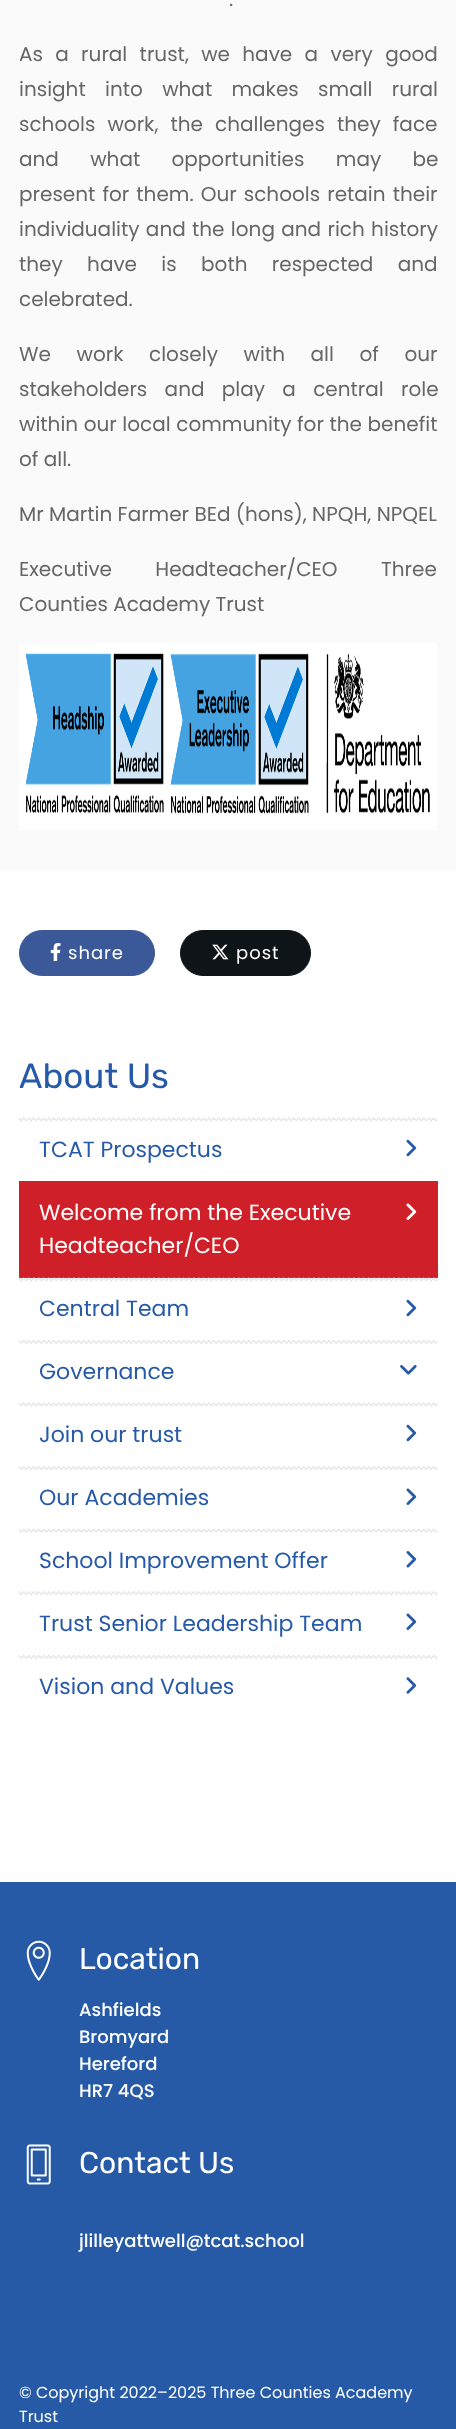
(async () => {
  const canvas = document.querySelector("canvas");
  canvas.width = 456;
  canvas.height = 2429;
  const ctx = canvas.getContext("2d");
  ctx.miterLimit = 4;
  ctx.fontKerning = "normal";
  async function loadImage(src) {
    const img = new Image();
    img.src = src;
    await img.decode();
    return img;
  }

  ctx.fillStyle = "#ffffff";
  ctx.fillRect(0, 0, 456, 2429);
  ctx.fillStyle = "#fafafa";
  ctx.fillRect(0, 0, 456, 870);
  ctx.drawImage(await loadImage("img/1.png"), 19, 643, 418, 187);
  ctx.fillStyle = "#3b5998";
  ctx.beginPath();
  ctx.roundRect(19.5, 930.5, 135, 45, 22.5);
  ctx.fill();
  ctx.strokeStyle = "#3b5998";
  ctx.stroke();
  ctx.drawImage(await loadImage("img/2.png"), 50, 943, 11, 18);
  ctx.fillStyle = "#0f1419";
  ctx.beginPath();
  ctx.roundRect(180.5, 930.5, 130, 45, 22.5);
  ctx.fill();
  ctx.strokeStyle = "#0f1419";
  ctx.stroke();
  ctx.drawImage(await loadImage("img/3.png"), 212, 944, 17, 16);
  ctx.drawImage(await loadImage("img/4.png"), 18, 1117, 420, 5);
  ctx.drawImage(await loadImage("img/5.png"), 406, 1139, 11, 18);
  ctx.drawImage(await loadImage("img/6.png"), 18, 1181, 1, 3);
  ctx.fillStyle = "#cf2029";
  ctx.fillRect(19, 1181, 419, 97);
  ctx.drawImage(await loadImage("img/7.png"), 406, 1203, 11, 17);
  ctx.drawImage(await loadImage("img/8.png"), 18, 1277, 420, 5);
  ctx.drawImage(await loadImage("img/5.png"), 406, 1299, 11, 18);
  ctx.drawImage(await loadImage("img/9.png"), 18, 1340, 420, 4);
  ctx.drawImage(await loadImage("img/10.png"), 400, 1365, 17, 10);
  ctx.drawImage(await loadImage("img/11.png"), 18, 1402, 420, 5);
  ctx.drawImage(await loadImage("img/5.png"), 406, 1424, 11, 18);
  ctx.drawImage(await loadImage("img/12.png"), 18, 1466, 420, 4);
  ctx.drawImage(await loadImage("img/13.png"), 406, 1488, 11, 17);
  ctx.drawImage(await loadImage("img/14.png"), 18, 1528, 420, 5);
  ctx.drawImage(await loadImage("img/15.png"), 406, 1551, 11, 17);
  ctx.drawImage(await loadImage("img/16.png"), 18, 1591, 420, 4);
  ctx.drawImage(await loadImage("img/13.png"), 406, 1613, 11, 17);
  ctx.drawImage(await loadImage("img/17.png"), 18, 1655, 420, 4);
  ctx.drawImage(await loadImage("img/18.png"), 406, 1677, 11, 17);
  ctx.fillStyle = "#265aa7";
  ctx.fillRect(0, 1882, 456, 547);
  ctx.drawImage(await loadImage("img/19.png"), 26, 1940, 25, 41);
  ctx.drawImage(await loadImage("img/20.png"), 26, 2144, 25, 41);
  ctx.font = "20px Poppins";
  ctx.fillStyle = "#666666";
  ctx.fillText(".", 229, 6);
  ctx.wordSpacing = "7px";
  ctx.fillText("As a rural trust, we have a very good", 19, 61);
  ctx.wordSpacing = "14px";
  ctx.fillText("insight into what makes small rural", 19, 96);
  ctx.wordSpacing = "6.75px";
  ctx.fillText("schools work, the challenges they face", 19, 131);
  ctx.wordSpacing = "26px";
  ctx.fillText("and what opportunities may be", 19, 166);
  ctx.wordSpacing = "1.75px";
  ctx.fillText("present for them. Our schools retain their", 19, 201);
  ctx.wordSpacing = "1px";
  ctx.fillText("individuality and the long and rich history", 19, 236);
  ctx.wordSpacing = "19px";
  ctx.fillText("they have is both respected and", 19, 271);
  ctx.wordSpacing = "0px";
  ctx.fillText("celebrated.", 19, 306);
  ctx.wordSpacing = "20.25px";
  ctx.fillText("We work closely with all of our", 19, 361);
  ctx.wordSpacing = "12px";
  ctx.fillText("stakeholders and play a central role", 19, 396);
  ctx.wordSpacing = "0.25px";
  ctx.fillText("within our local community for the benefit", 19, 431);
  ctx.wordSpacing = "0px";
  ctx.fillText("of all.", 19, 466);
  ctx.fillText("Mr Martin Farmer BEd (hons), NPQH, NPQEL", 19, 521);
  ctx.wordSpacing = "38px";
  ctx.fillText("Executive Headteacher/CEO Three", 19, 576);
  ctx.wordSpacing = "0px";
  ctx.fillText("Counties Academy Trust", 19, 611);
  ctx.letterSpacing = "1px";
  ctx.font = "18px Poppins";
  ctx.fillStyle = "#ffffff";
  ctx.fillText("share", 68, 959);
  ctx.fillText("post", 236, 959);
  ctx.letterSpacing = "0px";
  ctx.font = "35px Rubik";
  ctx.fillStyle = "#2659a7";
  ctx.fillText("About Us", 19, 1088);
  ctx.font = "22px Poppins";
  ctx.fillText("TCAT Prospectus", 39, 1157);
  ctx.fillStyle = "#ffffff";
  ctx.fillText("Welcome from the Executive", 39, 1220);
  ctx.fillText("Headteacher/CEO", 39, 1253);
  ctx.fillStyle = "#2659a7";
  for (const [text, x, y] of [
    ["Central Team", 39, 1316],
    ["Governance", 39, 1379],
    ["Join our trust", 39, 1442],
    ["Our Academies", 39, 1505],
    ["School Improvement Offer", 39, 1568],
    ["Trust Senior Leadership Team", 39, 1631],
    ["Vision and Values", 39, 1694],
  ]) {
    ctx.fillText(text, x, y);
  }
  ctx.font = "30px Rubik";
  ctx.fillStyle = "#ffffff";
  ctx.fillText("Location", 79, 1969);
  ctx.font = "500 18px Poppins";
  for (const [text, x, y] of [
    ["Ashfields", 79, 2016],
    ["Bromyard", 79, 2043],
    ["Hereford", 79, 2070],
    ["HR7 4QS", 79, 2097],
  ]) {
    ctx.fillText(text, x, y);
  }
  ctx.font = "30px Rubik";
  ctx.fillText("Contact Us", 79, 2173);
  ctx.font = "500 18px Poppins";
  ctx.fillText("jlilleyattwell@tcat.school", 79, 2247);
  ctx.font = "16px Poppins";
  ctx.fillText("© Copyright 2022–2025 Three Counties Academy", 19, 2398);
  ctx.fillText("Trust", 19, 2422);
})();
